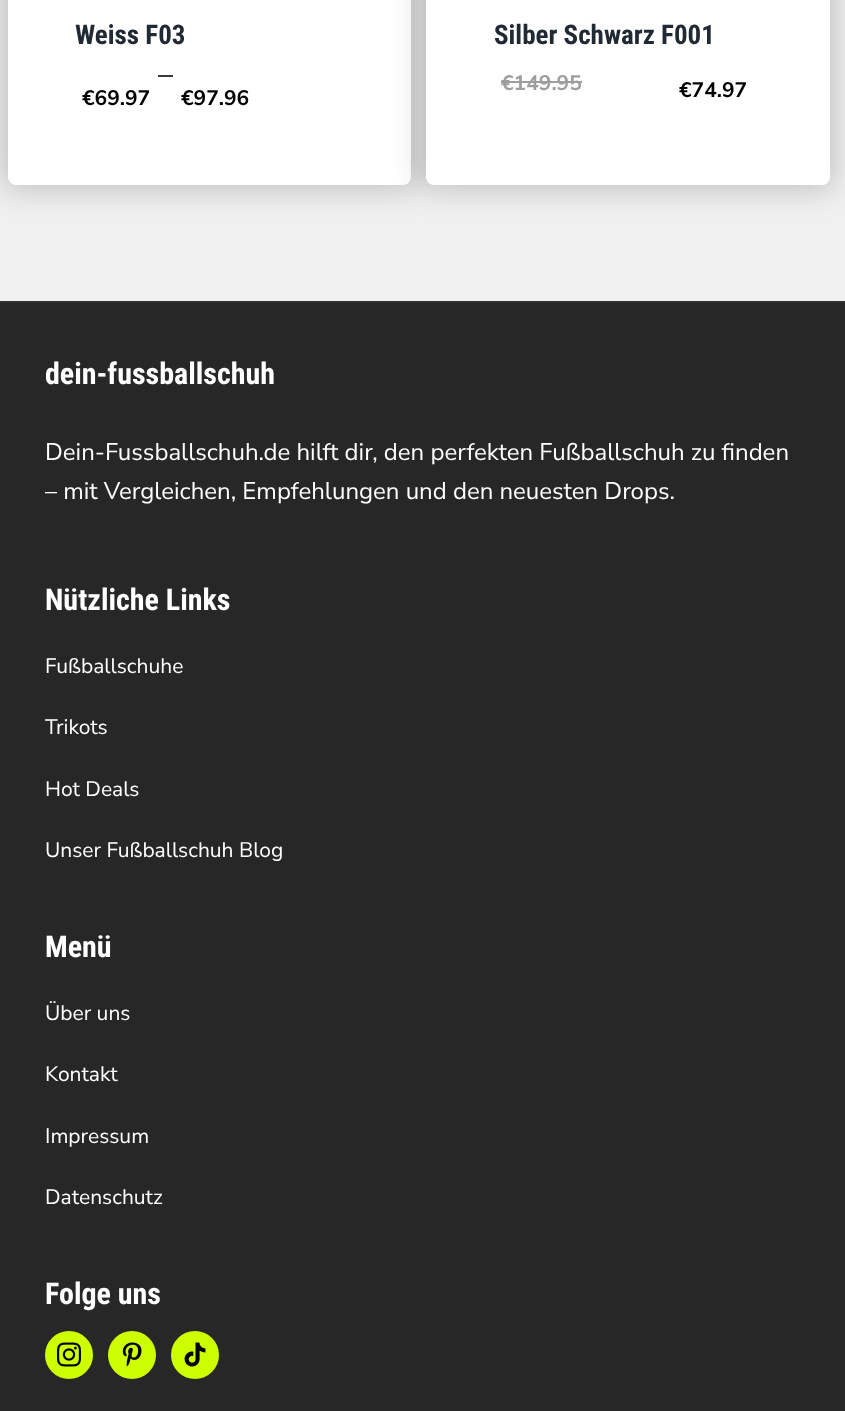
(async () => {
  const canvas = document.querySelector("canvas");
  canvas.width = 845;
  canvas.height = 1411;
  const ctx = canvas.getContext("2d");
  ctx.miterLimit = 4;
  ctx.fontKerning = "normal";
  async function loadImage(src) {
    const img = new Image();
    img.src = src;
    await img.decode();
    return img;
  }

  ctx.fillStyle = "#f0f0f0";
  ctx.fillRect(0, 0, 845, 1411);
  ctx.fillStyle = "rgba(0, 0, 0, 0.2)";
  ctx.filter = "blur(15px)";
  ctx.beginPath();
  ctx.roundRect(3, -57, 413, 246, 12);
  ctx.fill();
  ctx.filter = "none";
  ctx.fillStyle = "#ffffff";
  ctx.beginPath();
  ctx.roundRect(8, -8, 403, 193, 8);
  ctx.fill();
  ctx.fillStyle = "rgba(0, 0, 0, 0.2)";
  ctx.filter = "blur(15px)";
  ctx.beginPath();
  ctx.roundRect(422, -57, 412, 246, 12);
  ctx.fill();
  ctx.filter = "none";
  ctx.fillStyle = "#ffffff";
  ctx.beginPath();
  ctx.roundRect(426, -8, 404, 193, 8);
  ctx.fill();
  ctx.fillStyle = "#9e9e9e";
  ctx.fillRect(501, 81, 81, 2);
  ctx.drawImage(await loadImage("img/1.png"), 0, 301, 845, 1110);
  ctx.fillStyle = "#ceff00";
  ctx.beginPath();
  ctx.arc(69, 1355, 24, 0, Math.PI * 2);
  ctx.fill();
  ctx.drawImage(await loadImage("img/2.png"), 57, 1342, 24, 25);
  ctx.beginPath();
  ctx.arc(132, 1355, 24, 0, Math.PI * 2);
  ctx.fill();
  ctx.drawImage(await loadImage("img/3.png"), 122, 1342, 20, 25);
  ctx.beginPath();
  ctx.arc(195, 1355, 24, 0, Math.PI * 2);
  ctx.fill();
  ctx.drawImage(await loadImage("img/4.png"), 184, 1342, 22, 25);
  ctx.font = "bold 27px Roboto Condensed";
  ctx.fillStyle = "#212934";
  ctx.fillText("Weiss F03", 75, 44);
  ctx.font = "30px Nunito Sans";
  ctx.fillStyle = "#000000";
  ctx.fillText("–", 158, 84);
  ctx.font = "bold 21px Nunito Sans";
  ctx.fillText("€69.97", 82, 105);
  ctx.fillText("€97.96", 181, 105);
  ctx.font = "bold 27px Roboto Condensed";
  ctx.fillStyle = "#212934";
  ctx.fillText("Silber Schwarz F001", 494, 44);
  ctx.font = "bold 21px Nunito Sans";
  ctx.fillStyle = "#9e9e9e";
  ctx.fillText("€149.95", 501, 90);
  ctx.fillStyle = "#000000";
  ctx.fillText("€74.97", 679, 97);
  ctx.font = "bold 30px Roboto Condensed";
  ctx.fillStyle = "#ffffff";
  ctx.fillText("dein-fussballschuh", 45, 384);
  ctx.font = "24px Nunito Sans";
  ctx.fillText("Dein-Fussballschuh.de hilft dir, den perfekten Fußballschuh zu finden", 45, 460);
  ctx.fillText("– mit Vergleichen, Empfehlungen und den neuesten Drops.", 45, 499);
  ctx.font = "bold 30px Roboto Condensed";
  ctx.fillText("Nützliche Links", 45, 610);
  ctx.font = "21px Nunito Sans";
  for (const [text, x, y] of [
    ["Fußballschuhe", 45, 673],
    ["Trikots", 45, 734],
    ["Hot Deals", 45, 796],
    ["Unser Fußballschuh Blog", 45, 857],
  ]) {
    ctx.fillText(text, x, y);
  }
  ctx.font = "bold 30px Roboto Condensed";
  ctx.fillText("Menü", 45, 957);
  ctx.font = "21px Nunito Sans";
  for (const [text, x, y] of [
    ["Über uns", 45, 1020],
    ["Kontakt", 45, 1081],
    ["Impressum", 45, 1143],
    ["Datenschutz", 45, 1204],
  ]) {
    ctx.fillText(text, x, y);
  }
  ctx.font = "bold 30px Roboto Condensed";
  ctx.fillText("Folge uns", 45, 1304);
})();
